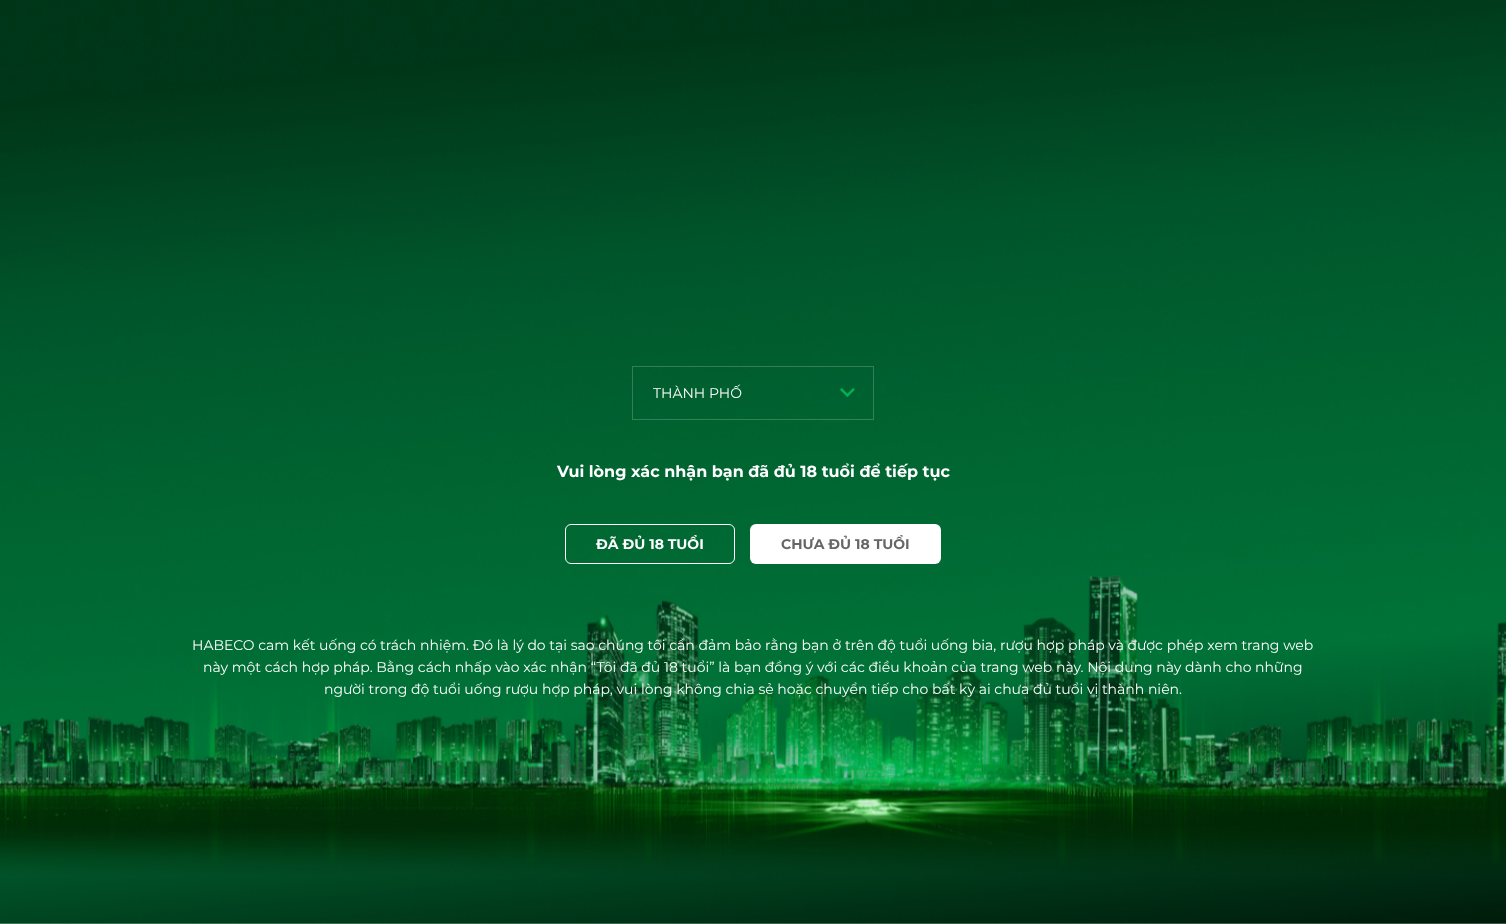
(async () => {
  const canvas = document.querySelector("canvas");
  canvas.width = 1506;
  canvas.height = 924;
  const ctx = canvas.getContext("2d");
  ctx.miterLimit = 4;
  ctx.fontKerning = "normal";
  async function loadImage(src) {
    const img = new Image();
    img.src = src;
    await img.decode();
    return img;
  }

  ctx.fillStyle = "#ffffff";
  ctx.fillRect(0, 0, 1506, 924);
  ctx.drawImage(await loadImage("img/1.png"), 0, 0, 1506, 924);
  ctx.drawImage(await loadImage("img/2.png"), 840, 388, 15, 9);
  ctx.strokeStyle = "rgba(255, 255, 255, 0.2)";
  ctx.strokeRect(632.5, 366.5, 241, 53);
  ctx.beginPath();
  ctx.roundRect(565.5, 524.5, 169, 39, 5.5);
  ctx.strokeStyle = "#ffffff";
  ctx.stroke();
  ctx.beginPath();
  ctx.roundRect(750, 524, 191, 40, 6);
  ctx.fill();
  ctx.font = "100 14px Montserrat";
  ctx.fillText("THÀNH PHỐ", 653, 398);
  ctx.font = "100 16px 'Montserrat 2'";
  ctx.fillText("Vui lòng xác nhận bạn đã đủ 18 tuổi để tiếp tục", 557, 477);
  ctx.font = "100 14px 'Montserrat 2'";
  ctx.fillText("ĐÃ ĐỦ 18 TUỔI", 596, 549);
  ctx.fillStyle = "#666666";
  ctx.fillText("CHƯA ĐỦ 18 TUỔI", 781, 549);
  ctx.font = "100 14px Montserrat";
  ctx.fillStyle = "#ffffff";
  for (const [text, x, y] of [
    ["HABECO cam kết uống có trách nhiệm. Đó là lý do tại sao chúng tôi cần đảm bảo rằng bạn ở trên độ tuổi uống bia, rượu hợp pháp và được phép xem trang web", 192, 650],
    ["này một cách hợp pháp. Bằng cách nhấp vào xác nhận “Tôi đã đủ 18 tuổi” là bạn đồng ý với các điều khoản của trang web này. Nội dung này dành cho những", 203, 672],
    ["người trong độ tuổi uống rượu hợp pháp, vui lòng không chia sẻ hoặc chuyển tiếp cho bất kỳ ai chưa đủ tuổi vị thành niên.", 324, 694],
  ]) {
    ctx.fillText(text, x, y);
  }
})();
